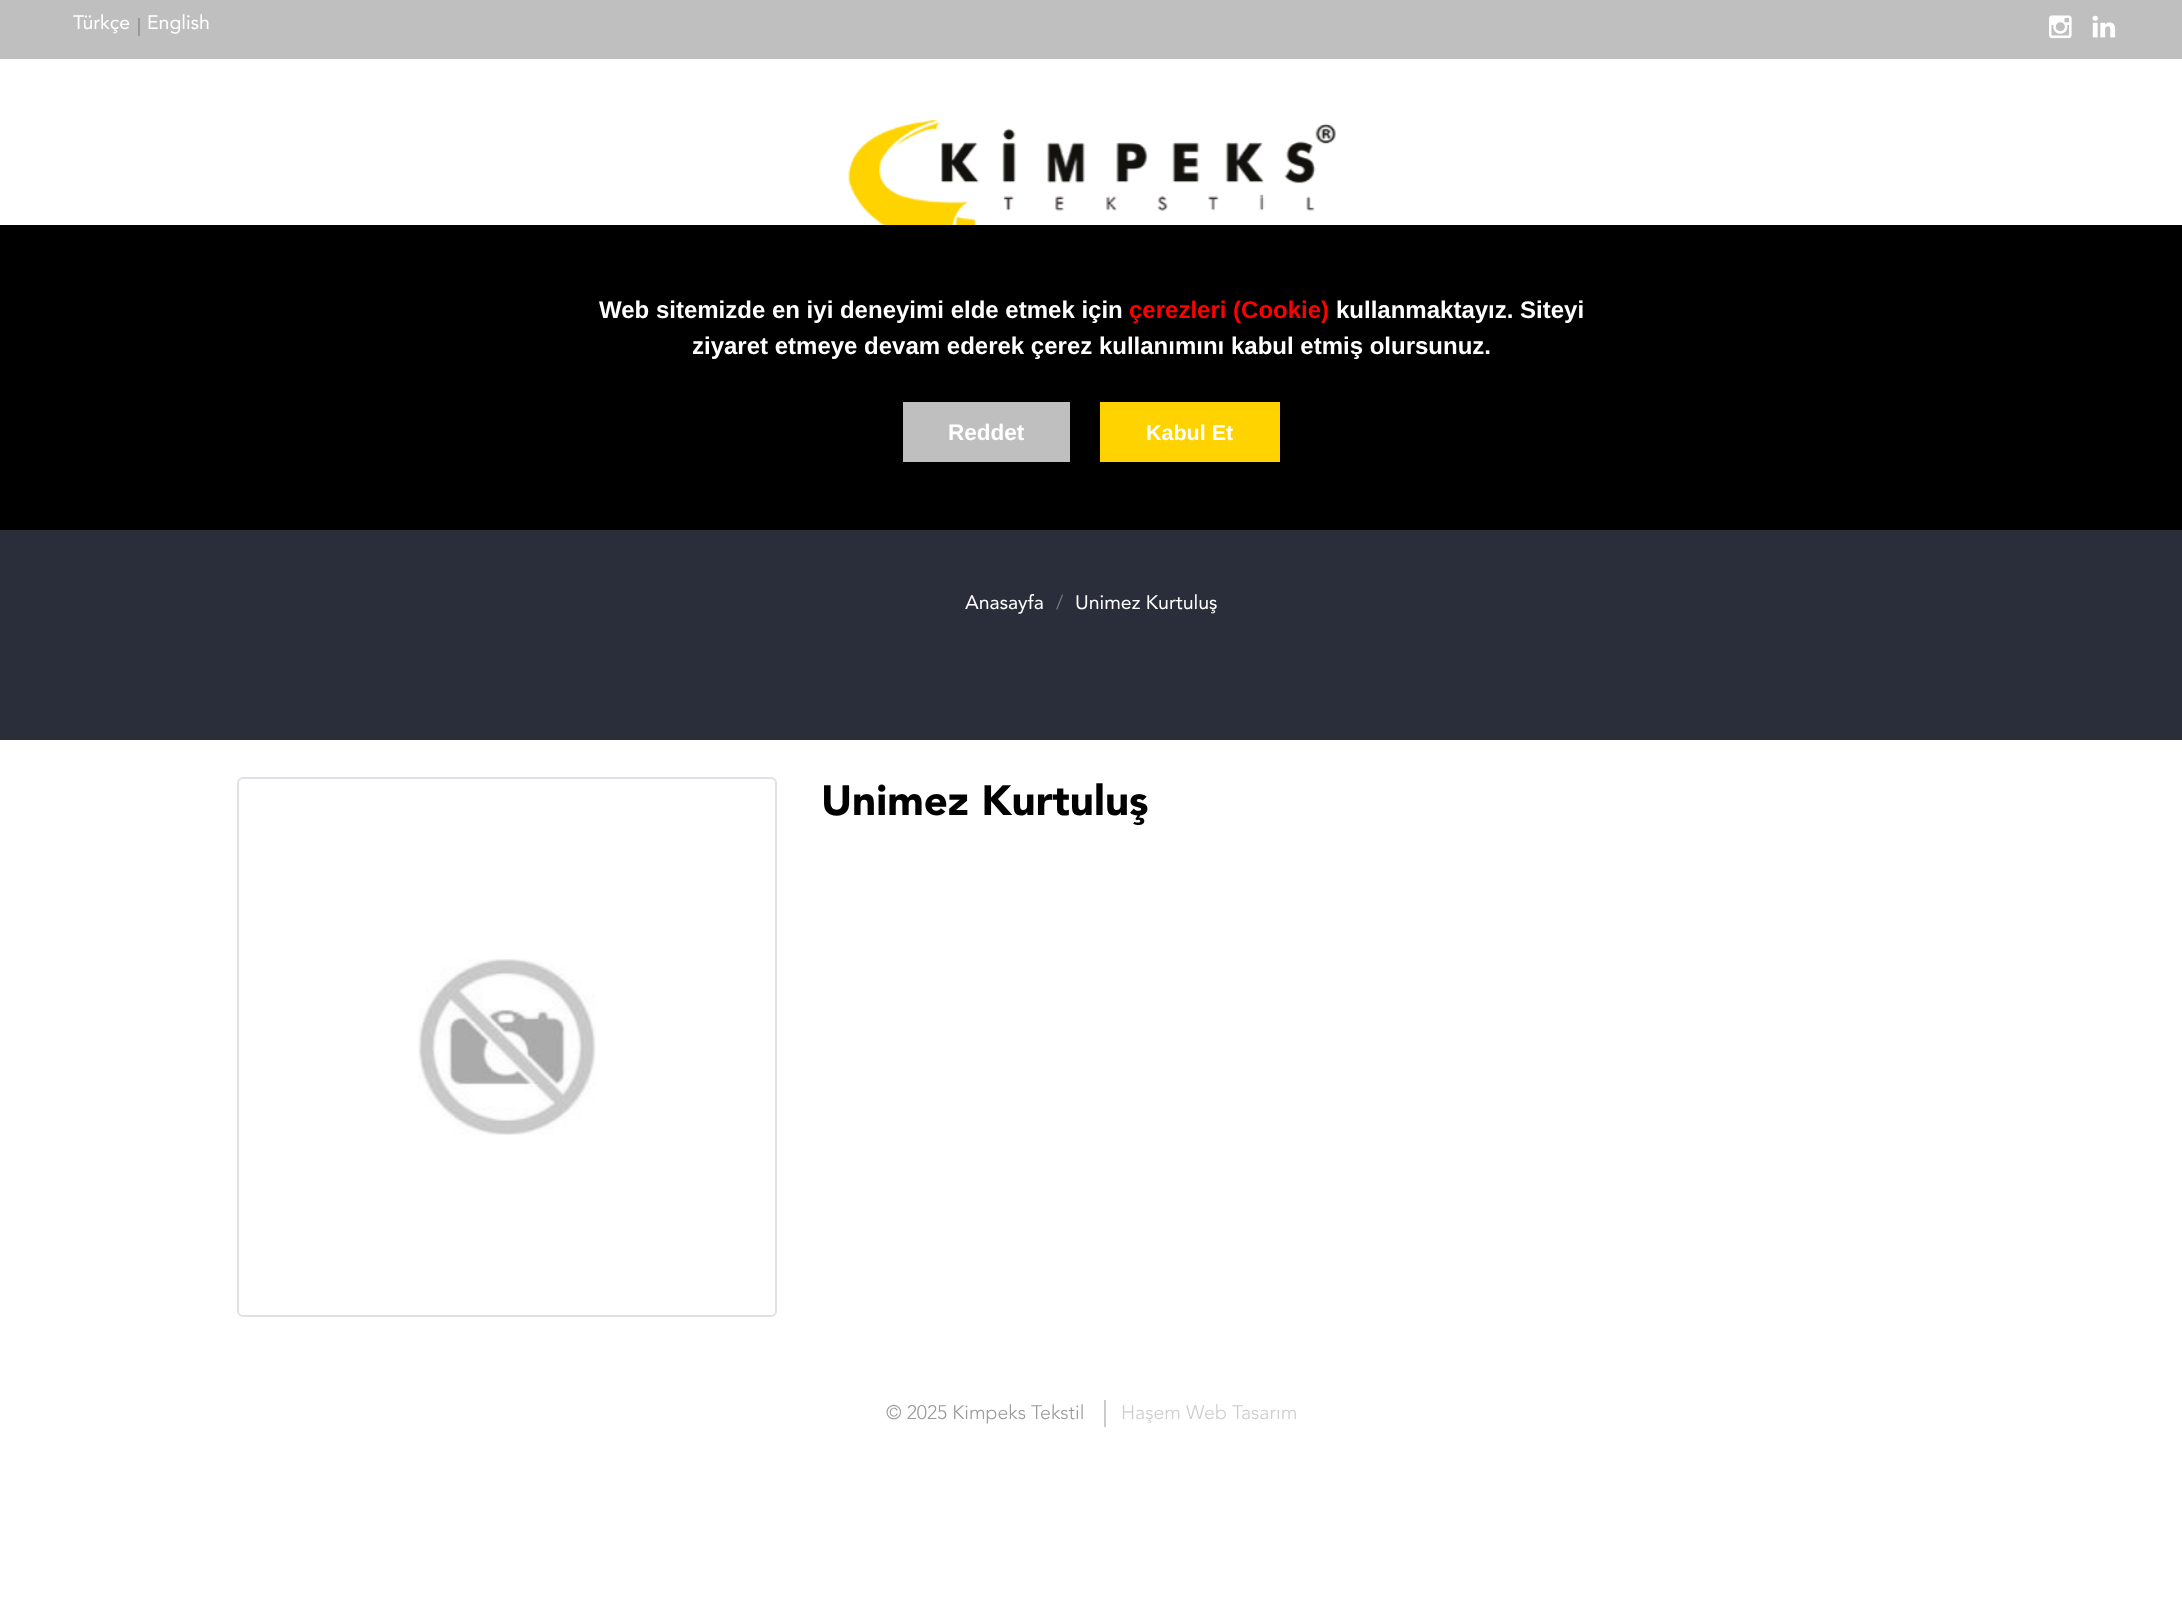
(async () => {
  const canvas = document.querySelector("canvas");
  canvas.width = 2182;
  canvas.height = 1616;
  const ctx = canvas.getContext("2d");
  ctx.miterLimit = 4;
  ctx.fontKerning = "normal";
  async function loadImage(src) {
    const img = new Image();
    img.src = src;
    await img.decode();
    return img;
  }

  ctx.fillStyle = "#ffffff";
  ctx.fillRect(0, 0, 2182, 1616);
  ctx.fillStyle = "#c0bfbf";
  ctx.fillRect(0, 0, 2182, 59);
  ctx.fillStyle = "#999999";
  ctx.fillRect(138, 18, 2, 18);
  ctx.drawImage(await loadImage("img/1.png"), 2049, 15, 23, 24);
  ctx.drawImage(await loadImage("img/2.png"), 2092, 15, 24, 23);
  ctx.drawImage(await loadImage("img/3.png"), 848, 120, 488, 105);
  ctx.fillStyle = "#2a2e3a";
  ctx.fillRect(0, 530, 2182, 210);
  ctx.beginPath();
  ctx.roundRect(238, 778, 538, 538, 5);
  ctx.strokeStyle = "#dee2e6";
  ctx.lineWidth = 2;
  ctx.stroke();
  ctx.drawImage(await loadImage("img/4.png"), 418, 959, 178, 176);
  for (const [x, y, w, h, color] of [
    [1104, 1400, 2, 27, "#cccccc"],
    [0, 225, 2182, 305, "#000000"],
    [903, 402, 167, 60, "#c0bfbf"],
    [1100, 402, 180, 60, "#fed300"],
  ]) {
    ctx.fillStyle = color;
    ctx.fillRect(x, y, w, h);
  }
  ctx.font = "19.5px Avenir";
  ctx.fillStyle = "#ffffff";
  for (const [text, x, y] of [
    ["Türkçe", 73, 29],
    ["English", 147, 29],
    ["Anasayfa", 965, 609],
  ]) {
    ctx.fillText(text, x, y);
  }
  ctx.fillStyle = "#6c757d";
  ctx.fillText("/", 1056, 609);
  ctx.fillStyle = "#ffffff";
  ctx.fillText("Unimez Kurtuluş", 1075, 609);
  ctx.font = "900 42px Avenir";
  ctx.fillStyle = "#010101";
  ctx.fillText("Unimez Kurtuluş", 821, 815);
  ctx.font = "300 19.5px Avenir";
  ctx.fillStyle = "#999999";
  ctx.fillText("© 2025 Kimpeks Tekstil", 886, 1419);
  ctx.fillStyle = "#cccccc";
  ctx.fillText("Haşem Web Tasarım", 1121, 1419);
  ctx.font = "bold 24px Liberation Sans";
  ctx.fillStyle = "#ffffff";
  ctx.fillText("Web sitemizde en iyi deneyimi elde etmek için", 599, 318);
  ctx.fillStyle = "#ff0000";
  ctx.fillText("çerezleri (Cookie)", 1129, 318);
  ctx.fillStyle = "#ffffff";
  ctx.fillText("kullanmaktayız. Siteyi", 1336, 318);
  ctx.fillText("ziyaret etmeye devam ederek çerez kullanımını kabul etmiş olursunuz.", 692, 354);
  ctx.font = "bold 22.5px Liberation Sans";
  ctx.fillText("Reddet", 948, 440);
  ctx.font = "bold 21.5px Liberation Sans";
  ctx.fillText("Kabul Et", 1146, 440);
})();
